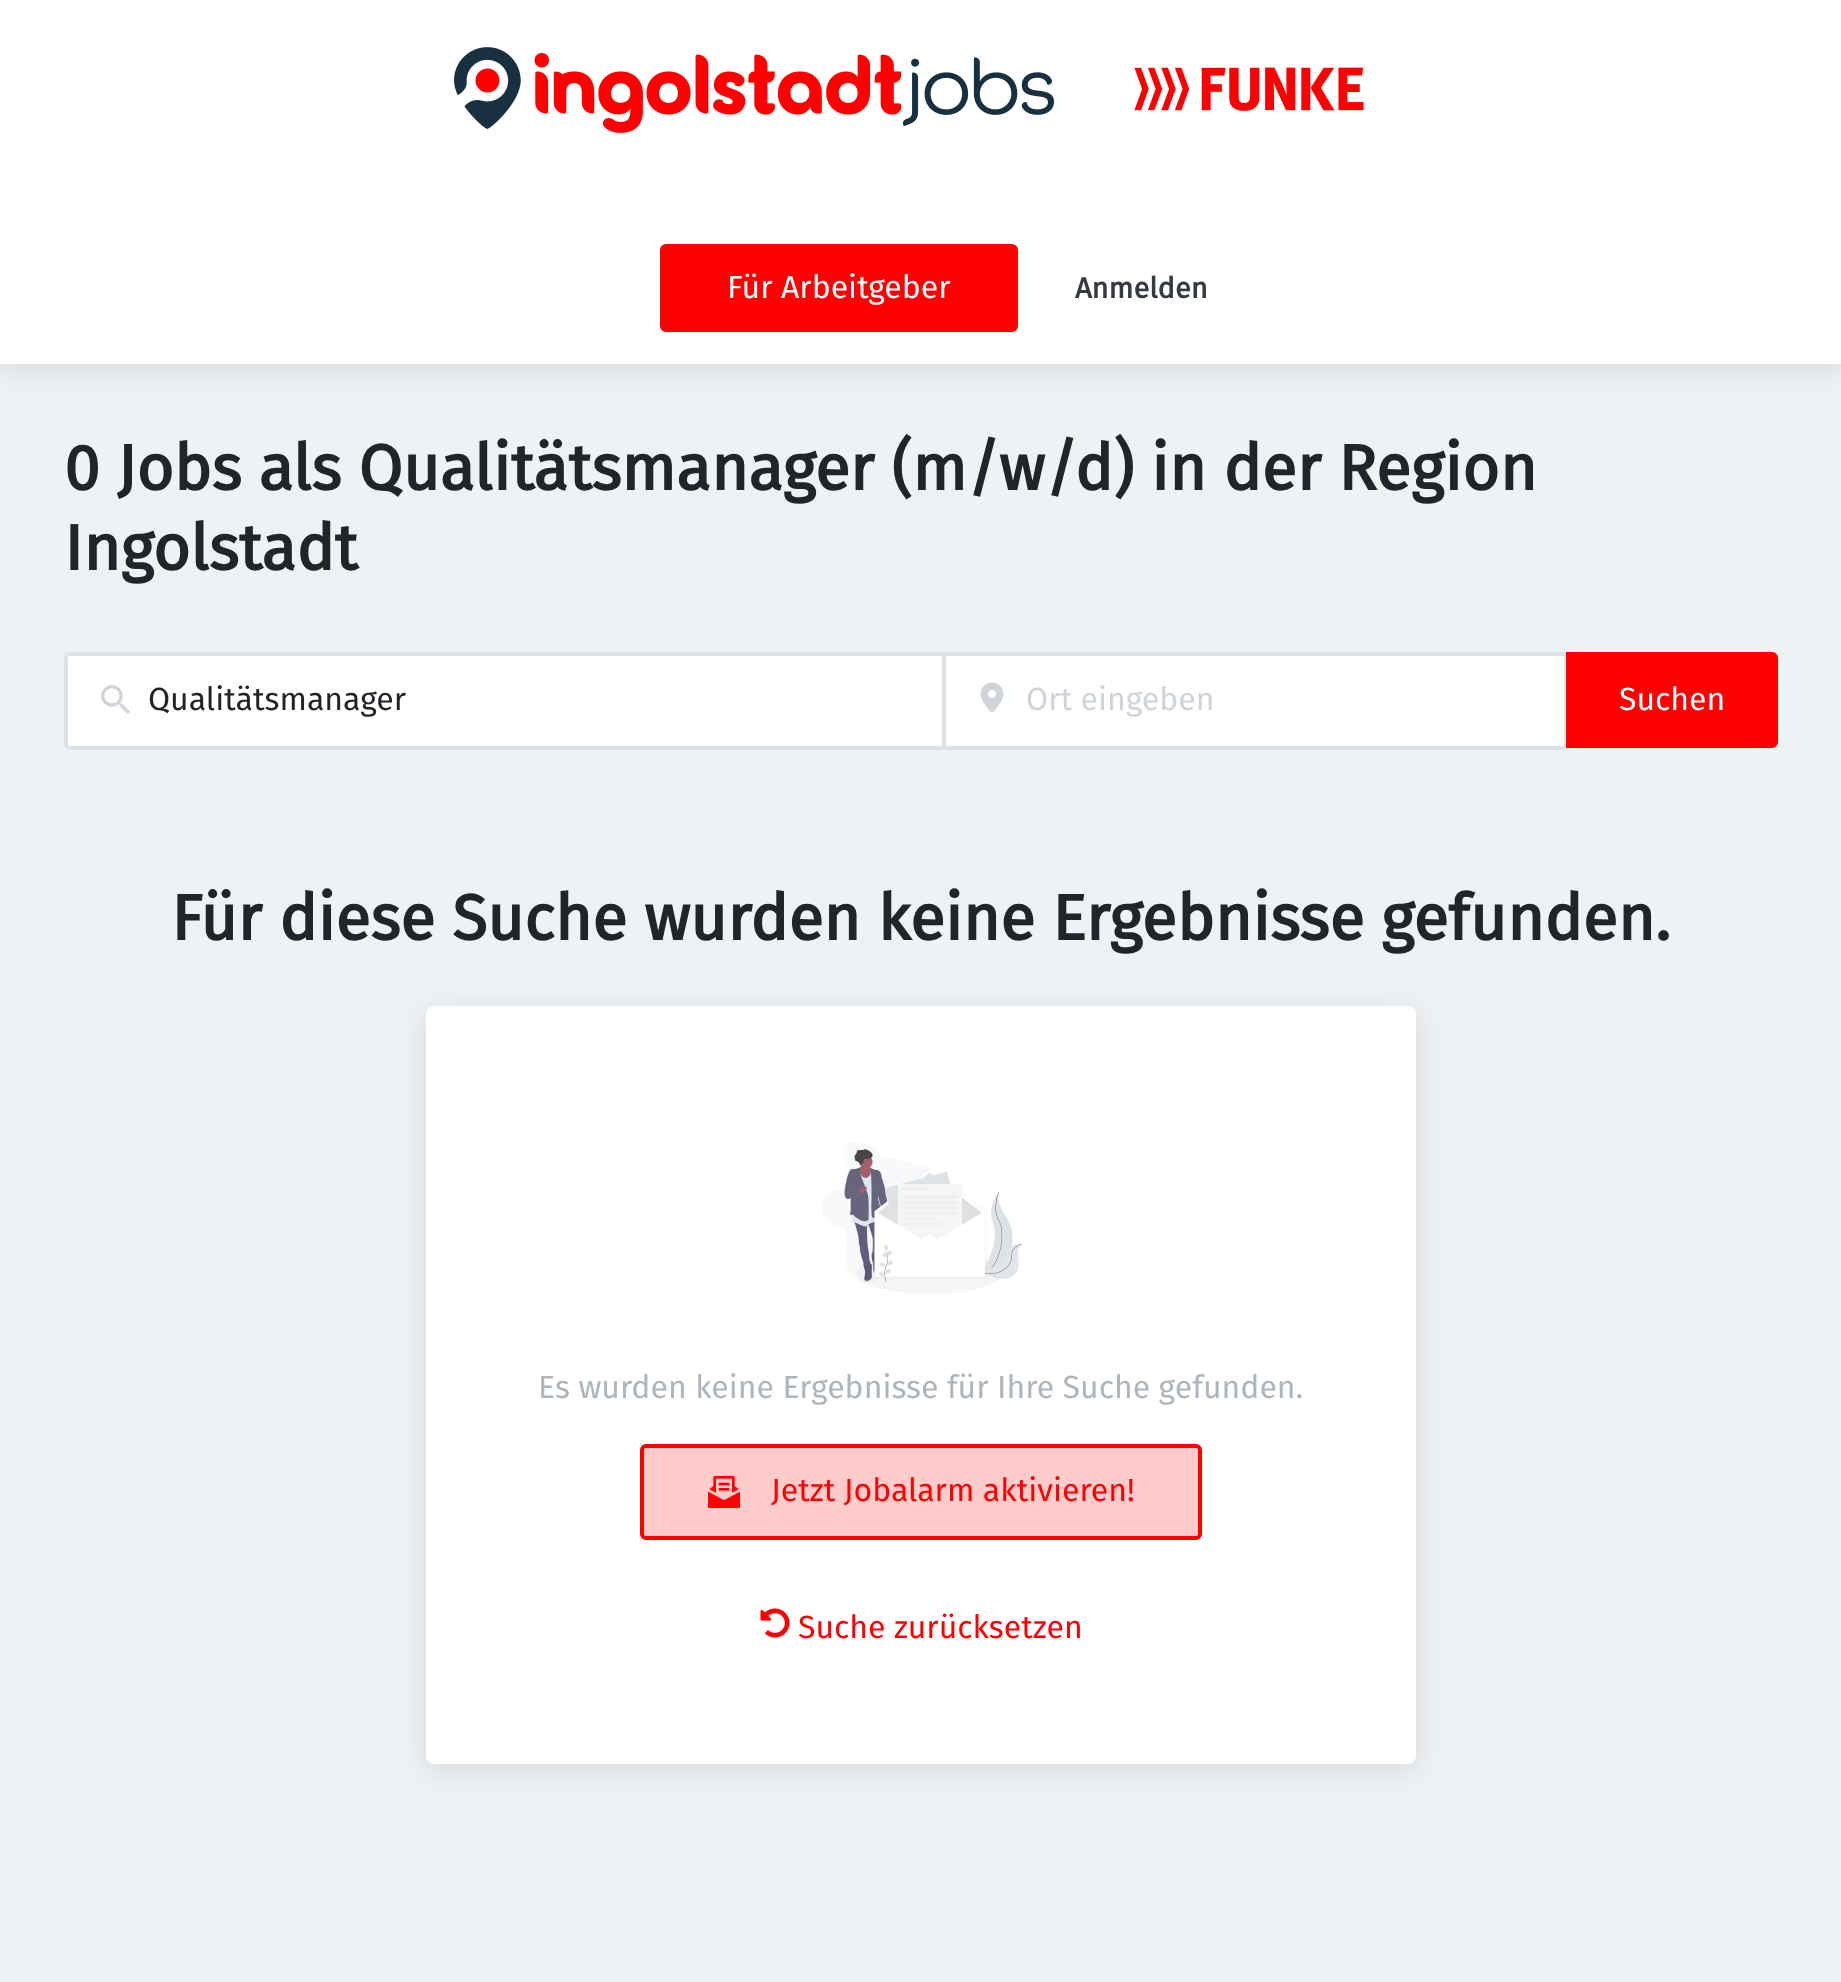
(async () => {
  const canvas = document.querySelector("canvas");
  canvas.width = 1841;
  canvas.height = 1982;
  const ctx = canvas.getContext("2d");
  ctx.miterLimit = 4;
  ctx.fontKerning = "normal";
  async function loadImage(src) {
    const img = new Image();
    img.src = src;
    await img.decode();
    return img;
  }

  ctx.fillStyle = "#eff2f4";
  ctx.fillRect(0, 0, 1841, 1982);
  ctx.fillStyle = "rgba(0, 0, 0, 0.1)";
  ctx.filter = "blur(15px)";
  ctx.beginPath();
  ctx.rect(0, 4, 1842, 366);
  ctx.fill();
  ctx.filter = "none";
  ctx.fillStyle = "#ffffff";
  ctx.fillRect(0, 0, 1841, 364);
  ctx.drawImage(await loadImage("img/1.png"), 454, 47, 600, 86);
  ctx.drawImage(await loadImage("img/2.png"), 1134, 67, 230, 44);
  ctx.fillStyle = "#ff0000";
  ctx.beginPath();
  ctx.roundRect(662, 246, 354, 84, 4);
  ctx.fill();
  ctx.strokeStyle = "#ff0000";
  ctx.lineWidth = 4;
  ctx.stroke();
  ctx.fillStyle = "#ffffff";
  ctx.beginPath();
  ctx.roundRect(68, 656, 874, 90, [2, 0, 0, 2]);
  ctx.fill();
  ctx.beginPath();
  ctx.roundRect(65, 653, 878, 96, [5, 0, 0, 5]);
  ctx.strokeStyle = "#dee2e6";
  ctx.lineWidth = 2;
  ctx.stroke();
  ctx.drawImage(await loadImage("img/3.png"), 101, 685, 29, 29);
  for (const [x, y, w, h, color] of [
    [68, 654, 876, 2, "#dee2e6"],
    [68, 746, 876, 2, "#dee2e6"],
    [66, 656, 2, 92, "#dee2e6"],
    [946, 656, 618, 90, "#ffffff"],
  ]) {
    ctx.fillStyle = color;
    ctx.fillRect(x, y, w, h);
  }
  ctx.drawImage(await loadImage("img/4.png"), 980, 682, 24, 31);
  for (const [x, y, w, h, color] of [
    [944, 652, 622, 4, "#dee2e6"],
    [1564, 652, 2, 98, "#dee2e6"],
    [944, 746, 622, 4, "#dee2e6"],
    [944, 652, 2, 98, "#dee2e6"],
  ]) {
    ctx.fillStyle = color;
    ctx.fillRect(x, y, w, h);
  }
  ctx.fillStyle = "#ff0000";
  ctx.beginPath();
  ctx.roundRect(1568, 654, 208, 92, [0, 4, 4, 0]);
  ctx.fill();
  ctx.strokeStyle = "#ff0000";
  ctx.lineWidth = 4;
  ctx.stroke();
  ctx.fillStyle = "rgba(0, 0, 0, 0.1)";
  ctx.filter = "blur(15px)";
  ctx.beginPath();
  ctx.roundRect(426, 1012, 990, 758, 8);
  ctx.fill();
  ctx.filter = "none";
  ctx.fillStyle = "#ffffff";
  ctx.beginPath();
  ctx.roundRect(426, 1006, 990, 758, 8);
  ctx.fill();
  ctx.drawImage(await loadImage("img/5.png"), 822, 1142, 200, 152);
  ctx.fillStyle = "#ffcccc";
  ctx.beginPath();
  ctx.roundRect(642, 1446, 558, 92, 4);
  ctx.fill();
  ctx.stroke();
  ctx.drawImage(await loadImage("img/6.png"), 708, 1476, 32, 32);
  ctx.drawImage(await loadImage("img/7.png"), 760, 1608, 30, 30);
  ctx.font = "32px Fira Sans";
  ctx.fillStyle = "#ffffff";
  ctx.fillText("Für Arbeitgeber", 727, 298);
  ctx.font = "bold 29px Fira Sans";
  ctx.fillStyle = "#343a40";
  ctx.fillText("Anmelden", 1075, 298);
  ctx.font = "bold 64px Fira Sans";
  ctx.fillStyle = "#212529";
  ctx.fillText("0 Jobs als Qualitätsmanager (m/w/d) in der Region", 64, 490);
  ctx.fillText("Ingolstadt", 64, 570);
  ctx.font = "32px Fira Sans";
  ctx.fillText("Qualitätsmanager", 148, 710);
  ctx.fillStyle = "#ced4da";
  ctx.fillText("Ort eingeben", 1026, 710);
  ctx.fillStyle = "#ffffff";
  ctx.fillText("Suchen", 1619, 710);
  ctx.font = "bold 64px Fira Sans";
  ctx.fillStyle = "#212529";
  ctx.fillText("Für diese Suche wurden keine Ergebnisse gefunden.", 171, 940);
  ctx.font = "32px Fira Sans";
  ctx.fillStyle = "#adb5bd";
  ctx.fillText("Es wurden keine Ergebnisse für Ihre Suche gefunden.", 538, 1398);
  ctx.fillStyle = "#ff0000";
  ctx.fillText("Jetzt Jobalarm aktivieren!", 771, 1501);
  ctx.fillText("Suche zurücksetzen", 798, 1638);
})();
